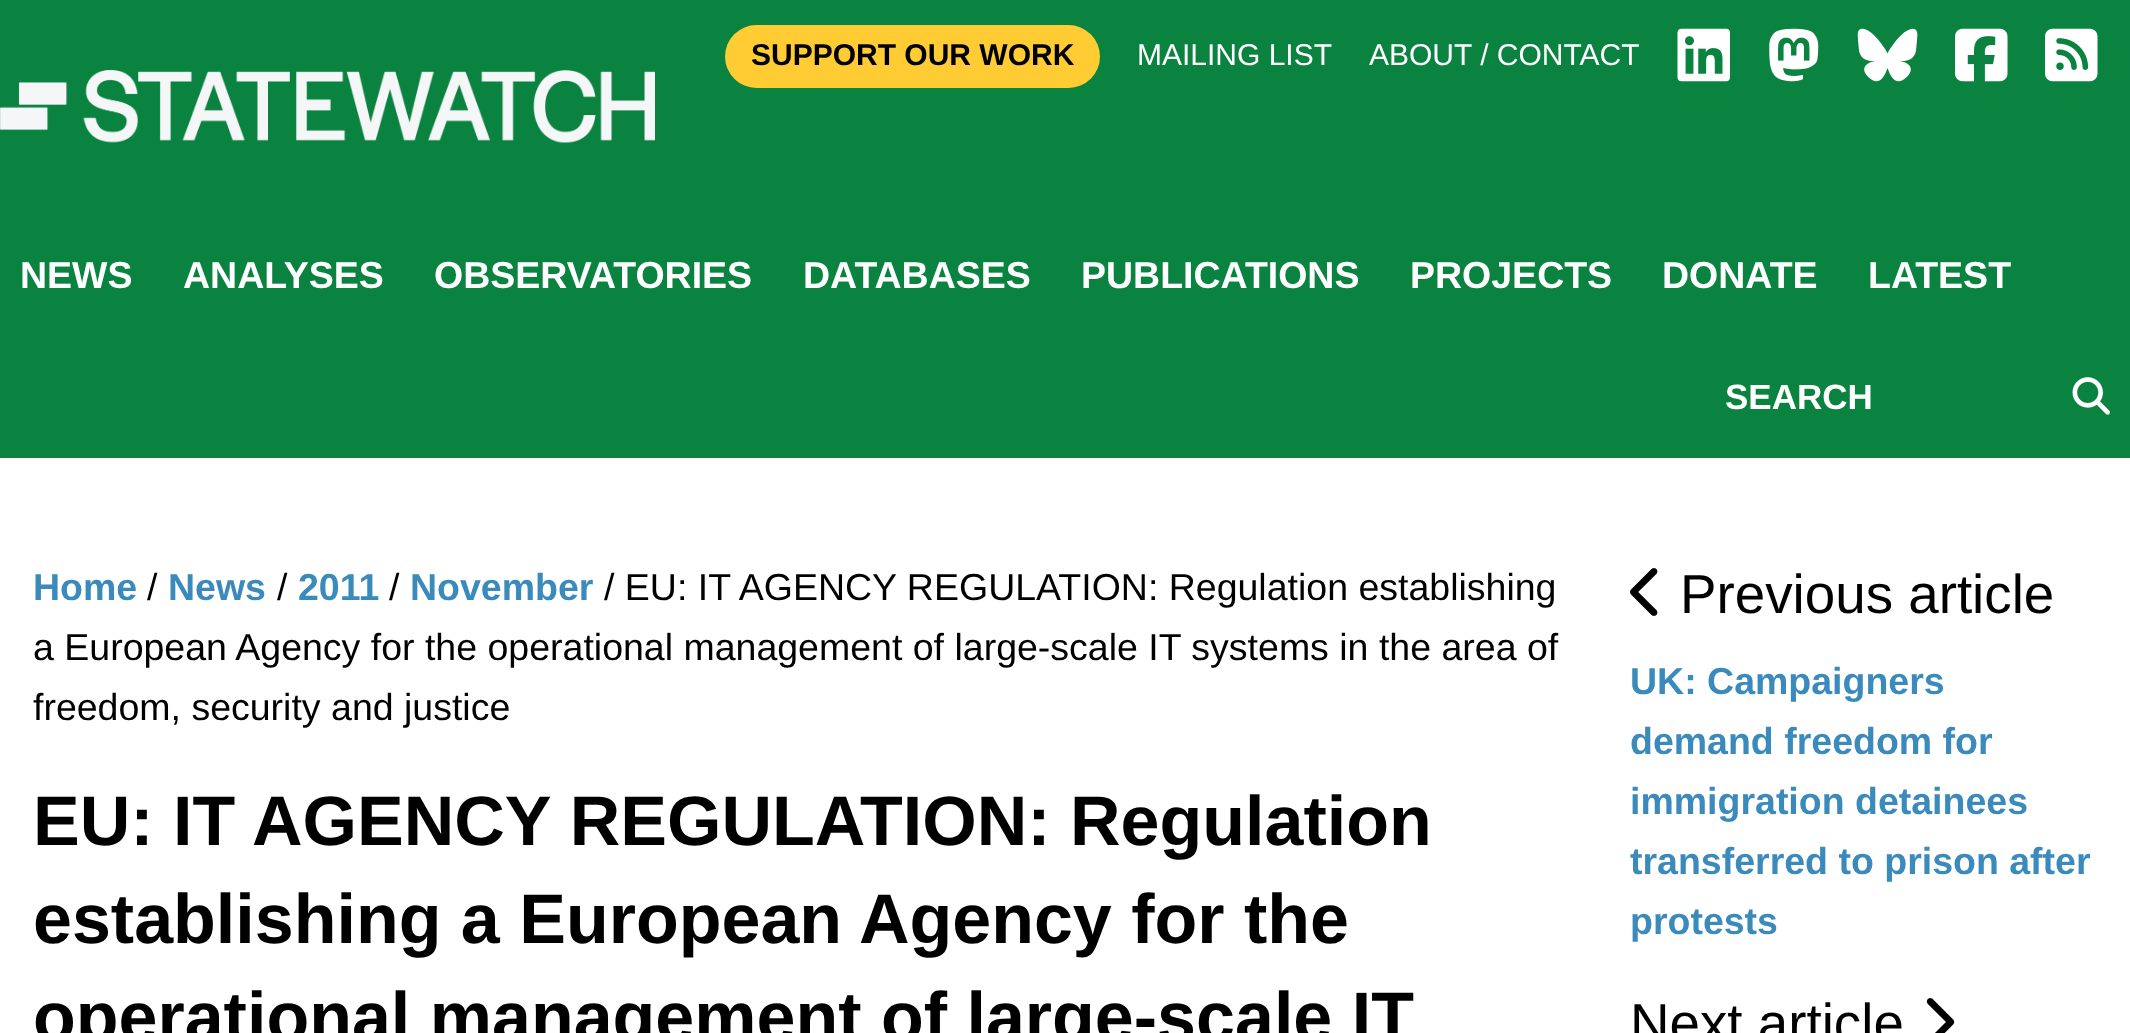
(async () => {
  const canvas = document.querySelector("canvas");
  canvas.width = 2130;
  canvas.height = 1033;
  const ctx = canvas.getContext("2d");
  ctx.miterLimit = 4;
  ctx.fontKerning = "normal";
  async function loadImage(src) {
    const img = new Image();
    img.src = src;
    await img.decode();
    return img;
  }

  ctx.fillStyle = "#ffffff";
  ctx.fillRect(0, 0, 2130, 1033);
  ctx.fillStyle = "#0a8341";
  ctx.fillRect(0, 0, 2130, 458);
  ctx.fillStyle = "#ffcc33";
  ctx.beginPath();
  ctx.roundRect(725, 25, 375, 63, 31.5);
  ctx.fill();
  ctx.drawImage(await loadImage("img/1.png"), 1677, 28, 53, 54);
  ctx.drawImage(await loadImage("img/2.png"), 1769, 28, 50, 54);
  ctx.drawImage(await loadImage("img/3.png"), 1857, 28, 61, 54);
  ctx.drawImage(await loadImage("img/4.png"), 1955, 28, 53, 54);
  ctx.drawImage(await loadImage("img/5.png"), 2045, 28, 53, 54);
  ctx.drawImage(await loadImage("img/6.png"), 0, 70, 655, 73);
  ctx.drawImage(await loadImage("img/7.png"), 2072, 377, 38, 38);
  ctx.drawImage(await loadImage("img/8.png"), 1630, 568, 28, 48);
  ctx.drawImage(await loadImage("img/9.png"), 1926, 998, 29, 35);
  ctx.font = "bold 30px Liberation Sans";
  ctx.fillStyle = "#000000";
  ctx.fillText("SUPPORT OUR WORK", 751, 65);
  ctx.font = "30px Liberation Sans";
  ctx.fillStyle = "#ffffff";
  ctx.fillText("MAILING LIST", 1137, 65);
  ctx.fillText("ABOUT / CONTACT", 1369, 65);
  ctx.font = "bold 37.5px Liberation Sans";
  for (const [text, x, y] of [
    ["NEWS", 20, 288],
    ["ANALYSES", 183, 288],
    ["OBSERVATORIES", 434, 288],
    ["DATABASES", 803, 288],
    ["PUBLICATIONS", 1081, 288],
    ["PROJECTS", 1410, 288],
    ["DONATE", 1662, 288],
    ["LATEST", 1868, 288],
  ]) {
    ctx.fillText(text, x, y);
  }
  ctx.font = "bold 35px Liberation Sans";
  ctx.fillText("SEARCH", 1725, 409);
  ctx.font = "bold 37.5px Liberation Sans";
  ctx.fillStyle = "#3b8abc";
  ctx.fillText("Home", 33, 600);
  ctx.font = "37.5px Liberation Sans";
  ctx.fillStyle = "#000000";
  ctx.fillText("/", 147, 600);
  ctx.font = "bold 37.5px Liberation Sans";
  ctx.fillStyle = "#3b8abc";
  ctx.fillText("News", 168, 600);
  ctx.font = "37.5px Liberation Sans";
  ctx.fillStyle = "#000000";
  ctx.fillText("/", 277, 600);
  ctx.font = "bold 37.5px Liberation Sans";
  ctx.fillStyle = "#3b8abc";
  ctx.fillText("2011", 298, 600);
  ctx.font = "37.5px Liberation Sans";
  ctx.fillStyle = "#000000";
  ctx.fillText("/", 389, 600);
  ctx.font = "bold 37.5px Liberation Sans";
  ctx.fillStyle = "#3b8abc";
  ctx.fillText("November", 410, 600);
  ctx.font = "37.5px Liberation Sans";
  ctx.fillStyle = "#000000";
  for (const [text, x, y] of [
    ["/ EU: IT AGENCY REGULATION: Regulation establishing", 604, 600],
    ["a European Agency for the operational management of large-scale IT systems in the area of", 33, 660],
    ["freedom, security and justice", 33, 720],
  ]) {
    ctx.fillText(text, x, y);
  }
  ctx.font = "bold 70px Liberation Sans";
  for (const [text, x, y] of [
    ["EU: IT AGENCY REGULATION: Regulation", 33, 845],
    ["establishing a European Agency for the", 33, 943],
    ["operational management of large-scale IT", 33, 1041],
  ]) {
    ctx.fillText(text, x, y);
  }
  ctx.font = "54.75px Liberation Sans";
  ctx.fillText("Previous article", 1680, 613);
  ctx.font = "bold 37.5px Liberation Sans";
  ctx.fillStyle = "#3b8abc";
  for (const [text, x, y] of [
    ["UK: Campaigners", 1630, 694],
    ["demand freedom for", 1630, 754],
    ["immigration detainees", 1630, 814],
    ["transferred to prison after", 1630, 874],
    ["protests", 1630, 934],
  ]) {
    ctx.fillText(text, x, y);
  }
  ctx.font = "54.75px Liberation Sans";
  ctx.fillStyle = "#000000";
  ctx.fillText("Next article", 1630, 1042);
})();
